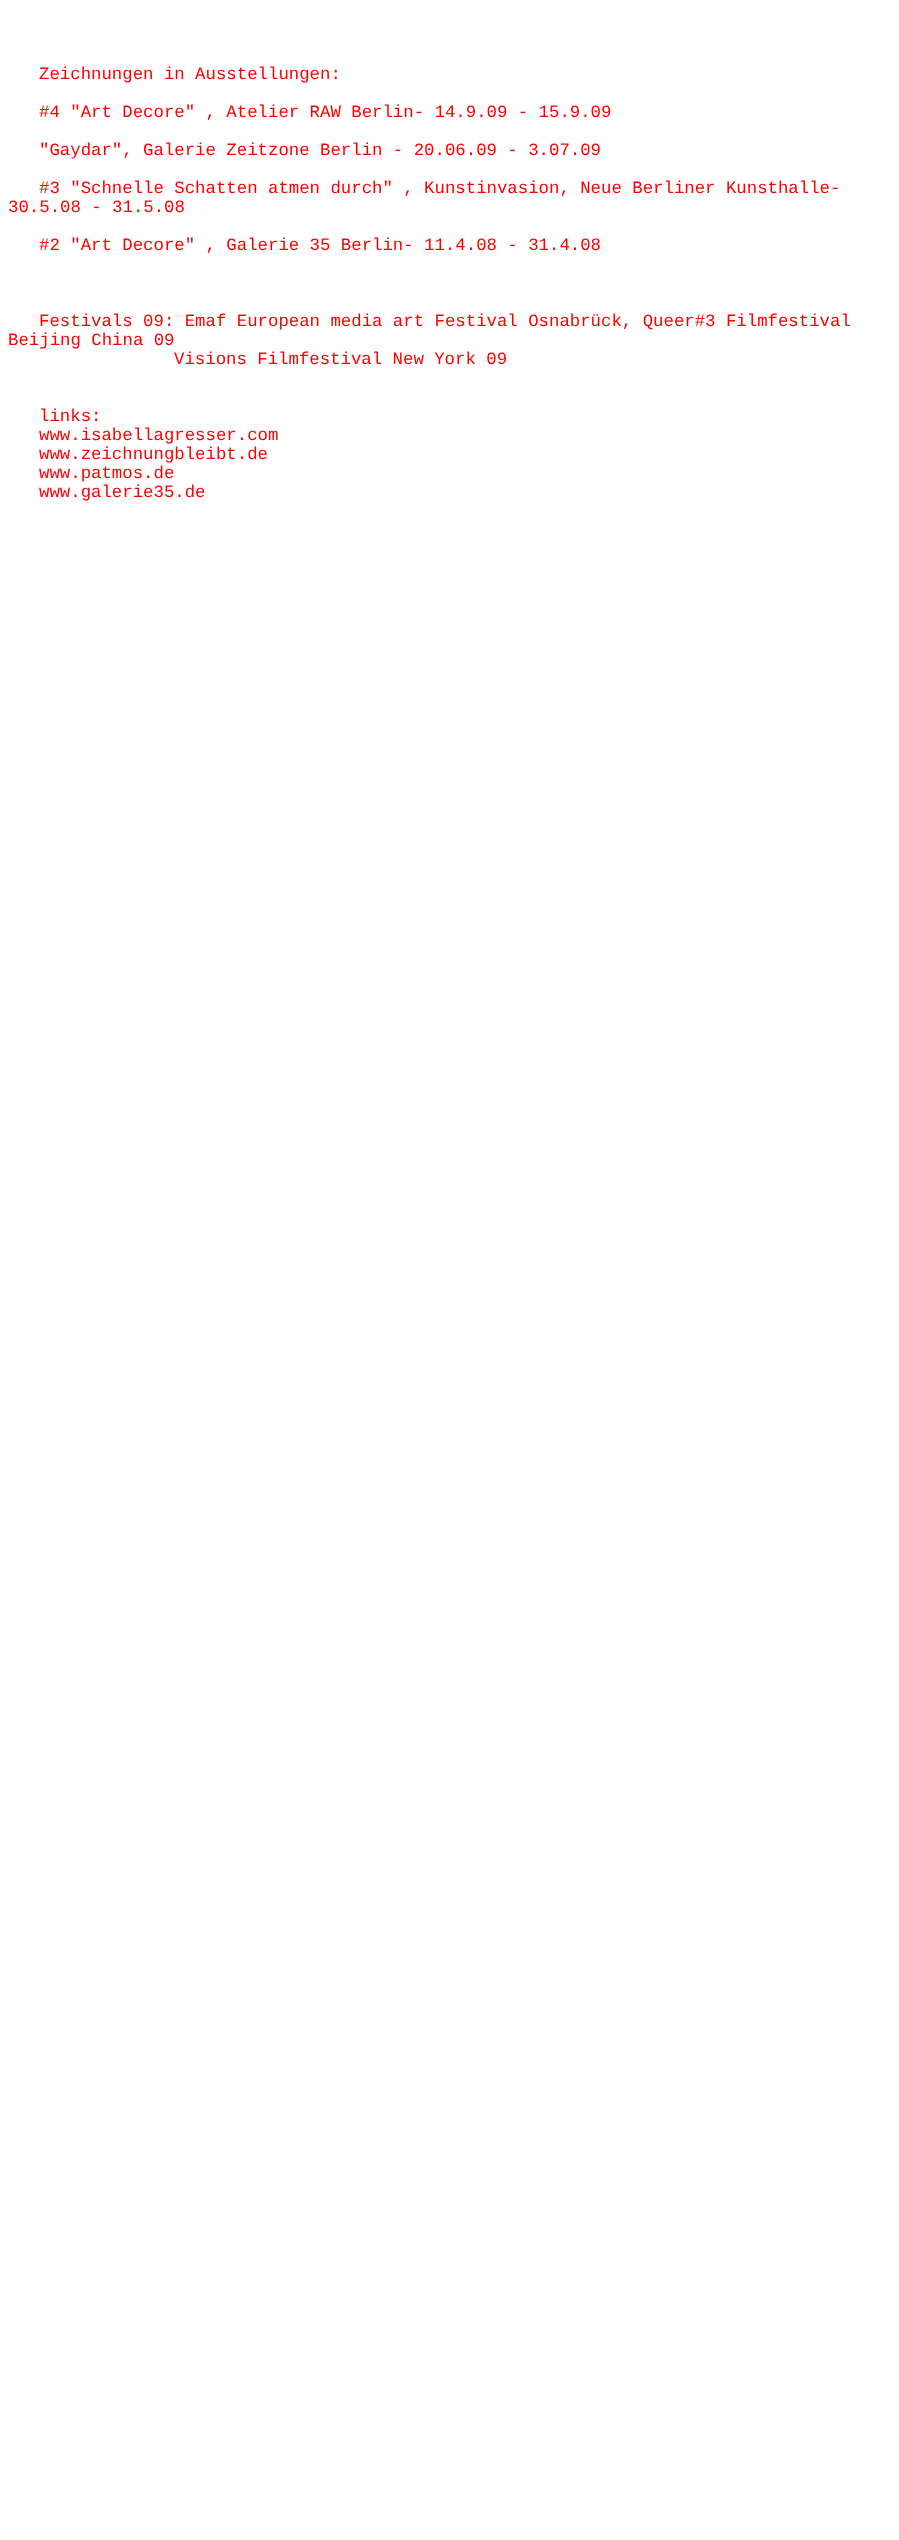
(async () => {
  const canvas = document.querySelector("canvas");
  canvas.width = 899;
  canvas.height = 2540;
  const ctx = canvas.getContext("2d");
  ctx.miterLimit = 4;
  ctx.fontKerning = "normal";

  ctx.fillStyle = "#ffffff";
  ctx.fillRect(0, 0, 899, 2540);
  ctx.font = "17.35px Liberation Mono";
  ctx.fillStyle = "#ff0000";
  for (const [text, x, y] of [
    ["Zeichnungen in Ausstellungen:", 39, 79],
    ["#4 \"Art Decore\" , Atelier RAW Berlin- 14.9.09 - 15.9.09", 39, 117],
    ["\"Gaydar\", Galerie Zeitzone Berlin - 20.06.09 - 3.07.09", 39, 155],
    ["#3 \"Schnelle Schatten atmen durch\" , Kunstinvasion, Neue Berliner Kunsthalle-", 39, 193],
    ["30.5.08 - 31.5.08", 8, 212],
    ["#2 \"Art Decore\" , Galerie 35 Berlin- 11.4.08 - 31.4.08", 39, 250],
    ["Festivals 09: Emaf European media art Festival Osnabrück, Queer#3 Filmfestival", 39, 326],
    ["Beijing China 09", 8, 345],
    ["Visions Filmfestival New York 09", 174, 364],
    ["links:", 39, 421],
    ["www.isabellagresser.com", 39, 440],
    ["www.zeichnungbleibt.de", 39, 459],
    ["www.patmos.de", 39, 478],
    ["www.galerie35.de", 39, 497],
  ]) {
    ctx.fillText(text, x, y);
  }
})();
